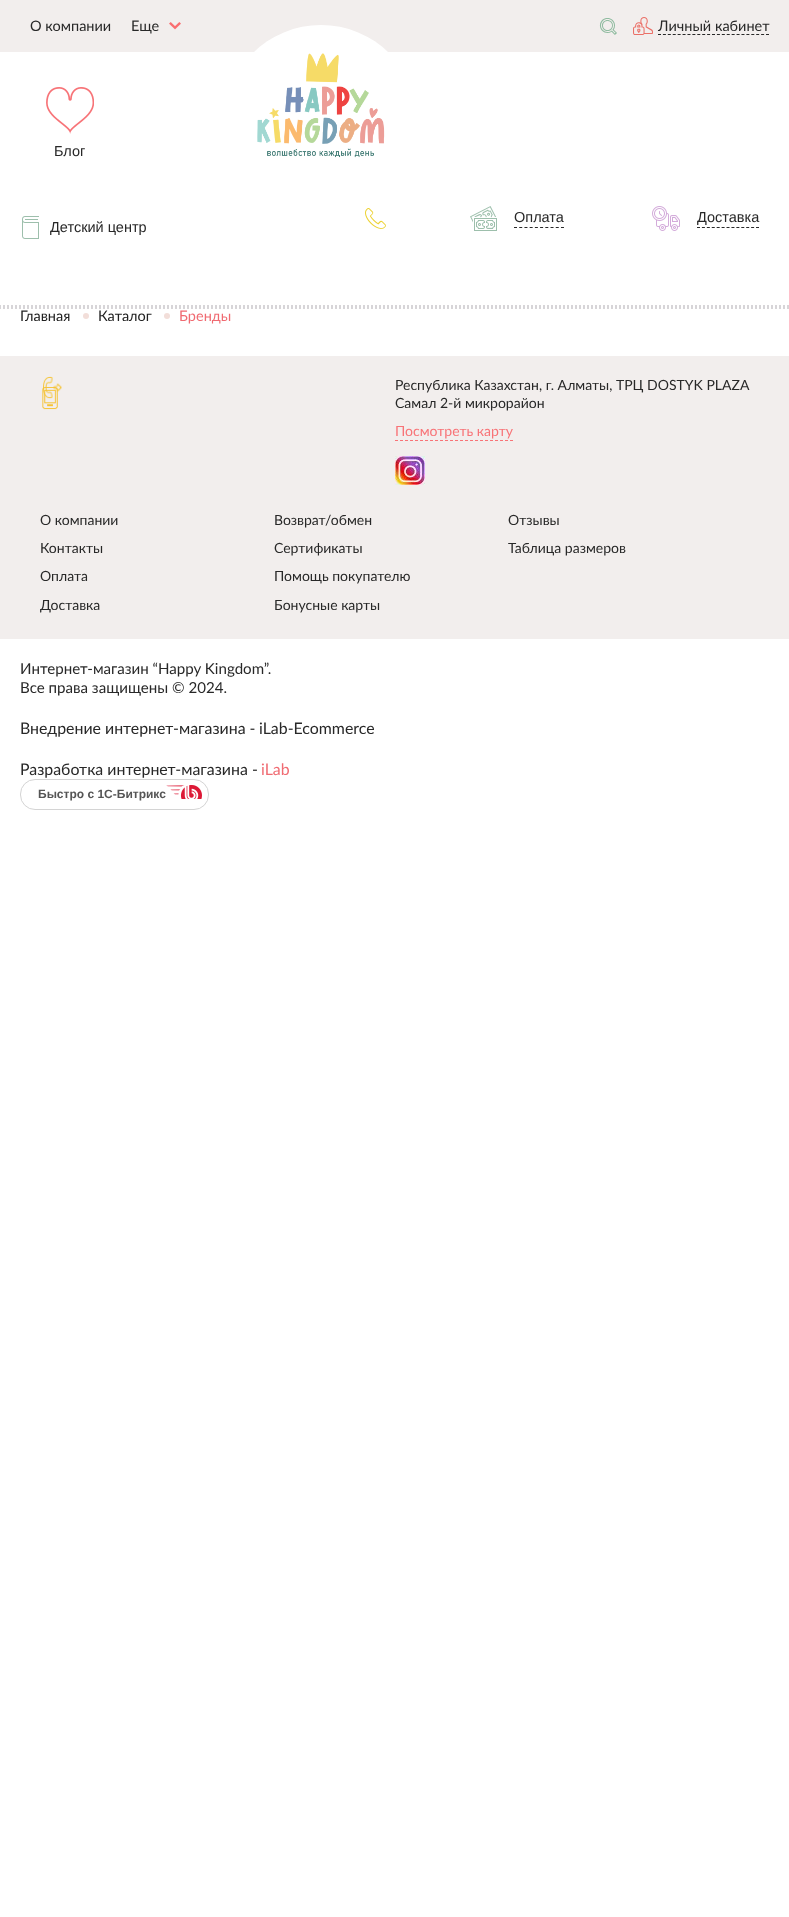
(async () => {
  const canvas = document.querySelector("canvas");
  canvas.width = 789;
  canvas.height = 1917;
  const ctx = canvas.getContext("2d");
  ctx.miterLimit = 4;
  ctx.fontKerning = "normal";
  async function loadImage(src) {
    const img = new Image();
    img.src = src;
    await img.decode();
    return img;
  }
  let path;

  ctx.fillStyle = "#ffffff";
  ctx.fillRect(0, 0, 789, 1917);
  ctx.fillStyle = "#f2eeed";
  ctx.fillRect(0, 0, 789, 52);
  ctx.drawImage(await loadImage("img/1.png"), 169, 22, 12, 8);
  ctx.drawImage(await loadImage("img/2.png"), 599, 18, 18, 17);
  ctx.drawImage(await loadImage("img/3.png"), 633, 17, 20, 18);
  path = new Path2D("M658 34.5H769");
  ctx.strokeStyle = "#282828";
  ctx.setLineDash([3, 1.91]);
  ctx.stroke(path);
  ctx.drawImage(await loadImage("img/4.png"), 46, 87, 48, 47);
  ctx.fillStyle = "#ffffff";
  ctx.beginPath();
  ctx.arc(321, 122, 97, 0, Math.PI * 2);
  ctx.fill();
  ctx.drawImage(await loadImage("img/5.png"), 257, 53, 128, 105);
  ctx.drawImage(await loadImage("img/6.png"), 470, 206, 27, 25);
  path = new Path2D("M514 227.5H564");
  ctx.setLineDash([3, 2.22]);
  ctx.stroke(path);
  ctx.drawImage(await loadImage("img/7.png"), 652, 206, 28, 25);
  path = new Path2D("M697 227.5H759");
  ctx.setLineDash([3, 1.92]);
  ctx.stroke(path);
  ctx.drawImage(await loadImage("img/8.png"), 22, 216, 17, 23);
  ctx.drawImage(await loadImage("img/9.png"), 365, 208, 21, 21);
  path = new Path2D("M-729 306H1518");
  ctx.strokeStyle = "#d7d5d8";
  ctx.lineWidth = 2;
  ctx.setLineDash([2, 2]);
  ctx.stroke(path);
  path = new Path2D("M-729 308H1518");
  ctx.stroke(path);
  ctx.fillStyle = "#f2ded9";
  ctx.beginPath();
  ctx.arc(86, 316, 3, 0, Math.PI * 2);
  ctx.fill();
  ctx.beginPath();
  ctx.arc(167, 316, 3, 0, Math.PI * 2);
  ctx.fill();
  ctx.fillStyle = "#f2eeed";
  ctx.fillRect(0, 356, 789, 283);
  ctx.drawImage(await loadImage("img/10.png"), 43, 376, 19, 23);
  ctx.drawImage(await loadImage("img/11.png"), 42, 387, 16, 23);
  path = new Path2D("M395 440.5H513");
  ctx.strokeStyle = "#f87377";
  ctx.lineWidth = 1;
  ctx.setLineDash([3, 2]);
  ctx.stroke(path);
  ctx.drawImage(await loadImage("img/12.png"), 395, 456, 30, 29);
  ctx.drawImage(await loadImage("img/13.png"), 166, 785, 36, 14);
  ctx.beginPath();
  ctx.roundRect(20.5, 779.5, 188, 30, 14.5);
  ctx.strokeStyle = "#d4d4d4";
  ctx.setLineDash([]);
  ctx.stroke();
  ctx.font = "14.5px Lato";
  ctx.fillStyle = "#282828";
  for (const [text, x, y] of [
    ["О компании", 30, 31],
    ["Еще", 131, 31],
    ["Личный кабинет", 658, 31],
  ]) {
    ctx.fillText(text, x, y);
  }
  ctx.font = "14.5px Liberation Sans";
  for (const [text, x, y] of [
    ["Блог", 54, 156],
    ["Оплата", 514, 222],
    ["Доставка", 697, 222],
    ["Детский центр", 50, 232],
  ]) {
    ctx.fillText(text, x, y);
  }
  ctx.font = "14.5px Lato";
  ctx.fillStyle = "#222222";
  ctx.fillText("Главная", 20, 321);
  ctx.fillText("Каталог", 98, 321);
  ctx.fillStyle = "#f06b72";
  ctx.fillText("Бренды", 179, 321);
  ctx.font = "14px Lato";
  ctx.fillStyle = "#282828";
  ctx.fillText("Республика Казахстан, г. Алматы, ТРЦ DOSTYK PLAZA", 395, 390);
  ctx.fillText("Самал 2-й микрорайон", 395, 408);
  ctx.fillStyle = "#f87377";
  ctx.fillText("Посмотреть карту", 395, 436);
  ctx.fillStyle = "#282828";
  for (const [text, x, y] of [
    ["О компании", 40, 525],
    ["Контакты", 40, 553],
    ["Оплата", 40, 581],
    ["Доставка", 40, 610],
    ["Возврат/обмен", 274, 525],
    ["Сертификаты", 274, 553],
    ["Помощь покупателю", 274, 581],
    ["Бонусные карты", 274, 610],
    ["Отзывы", 508, 525],
    ["Таблица размеров", 508, 553],
  ]) {
    ctx.fillText(text, x, y);
  }
  ctx.font = "15.1px Lato";
  ctx.fillText("Интернет-магазин “Happy Kingdom”.", 20, 674);
  ctx.fillText("Все права защищены © 2024.", 20, 693);
  ctx.font = "15.9px Lato";
  for (const [text, x, y] of [
    ["Внедрение интернет-магазина -", 20, 734],
    ["iLab-Ecommerce", 259, 734],
    ["Разработка интернет-магазина -", 20, 775],
  ]) {
    ctx.fillText(text, x, y);
  }
  ctx.fillStyle = "#f06b72";
  ctx.fillText("iLab", 261, 775);
  ctx.font = "bold 12px Liberation Sans";
  ctx.fillStyle = "#555555";
  ctx.fillText("Быстро с 1С-Битрикс", 38, 798);
})();
